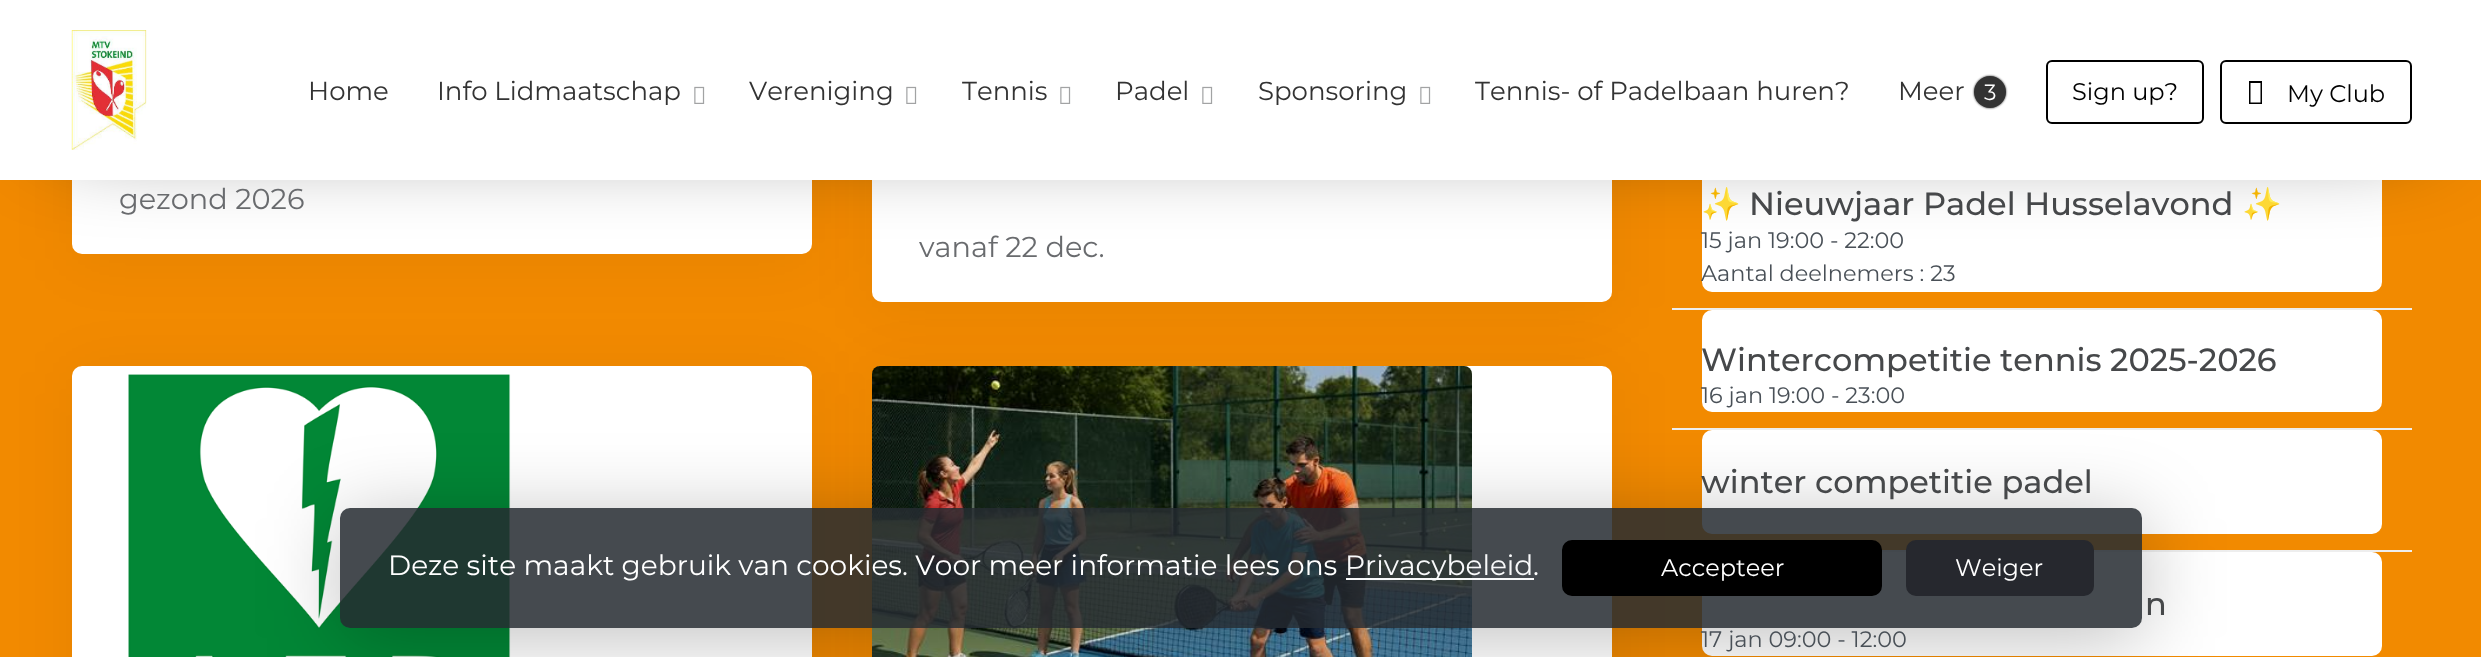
(async () => {
  const canvas = document.querySelector("canvas");
  canvas.width = 2481;
  canvas.height = 657;
  const ctx = canvas.getContext("2d");
  ctx.miterLimit = 4;
  ctx.fontKerning = "none";
  async function loadImage(src) {
    const img = new Image();
    img.src = src;
    await img.decode();
    return img;
  }
  let path;

  ctx.fillStyle = "#f28a00";
  ctx.fillRect(0, 0, 2481, 657);
  ctx.fillStyle = "rgba(0, 0, 0, 0.05)";
  ctx.filter = "blur(32px)";
  ctx.beginPath();
  ctx.roundRect(72, -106, 740, 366, 10);
  ctx.fill();
  ctx.filter = "none";
  ctx.fillStyle = "#ffffff";
  ctx.beginPath();
  ctx.roundRect(72, -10, 740, 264, 10);
  ctx.fill();
  ctx.fillStyle = "rgba(0, 0, 0, 0.05)";
  ctx.filter = "blur(32px)";
  ctx.beginPath();
  ctx.roundRect(872, -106, 740, 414, 10);
  ctx.fill();
  ctx.filter = "none";
  ctx.fillStyle = "#ffffff";
  ctx.beginPath();
  ctx.roundRect(872, -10, 740, 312, 10);
  ctx.fill();
  ctx.fillStyle = "rgba(0, 0, 0, 0.05)";
  ctx.filter = "blur(32px)";
  ctx.beginPath();
  ctx.roundRect(72, 372, 740, 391, 10);
  ctx.fill();
  ctx.filter = "none";
  ctx.fillStyle = "#ffffff";
  ctx.beginPath();
  ctx.roundRect(72, 366, 740, 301, 10);
  ctx.fill();
  ctx.fillStyle = "rgba(0, 0, 0, 0.05)";
  ctx.filter = "blur(32px)";
  ctx.beginPath();
  ctx.roundRect(872, 372, 740, 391, 10);
  ctx.fill();
  ctx.filter = "none";
  ctx.fillStyle = "#ffffff";
  ctx.beginPath();
  ctx.roundRect(1702, 154, 680, 138, 10);
  ctx.fill();
  ctx.fillStyle = "rgba(0, 0, 0, 0.85)";
  ctx.filter = "blur(50px)";
  ctx.beginPath();
  ctx.rect(60, 60, 2362, 60);
  ctx.fill();
  ctx.filter = "none";
  ctx.fillStyle = "#ffffff";
  ctx.fillRect(0, 0, 2481, 180);
  ctx.drawImage(await loadImage("img/1.png"), 71, 30, 76, 120);
  ctx.drawImage(await loadImage("img/2.png"), 694, 86, 11, 18);
  ctx.drawImage(await loadImage("img/2.png"), 906, 86, 11, 18);
  ctx.drawImage(await loadImage("img/2.png"), 1060, 86, 11, 18);
  ctx.drawImage(await loadImage("img/2.png"), 1202, 86, 11, 18);
  ctx.drawImage(await loadImage("img/2.png"), 1420, 86, 11, 18);
  ctx.fillStyle = "rgba(0, 0, 0, 0.8)";
  ctx.filter = "blur(1px)";
  ctx.beginPath();
  ctx.roundRect(1974, 76, 32, 32, 16);
  ctx.fill();
  ctx.filter = "none";
  ctx.fillStyle = "#333333";
  ctx.beginPath();
  ctx.arc(1990, 92, 16, 0, Math.PI * 2);
  ctx.fill();
  ctx.beginPath();
  ctx.roundRect(2047, 61, 156, 62, 5);
  ctx.strokeStyle = "#000000";
  ctx.lineWidth = 2;
  ctx.stroke();
  ctx.beginPath();
  ctx.roundRect(2221, 61, 190, 62, 5);
  ctx.stroke();
  ctx.fillStyle = "#000000";
  path = new Path2D("M2249 104V81H2262V104ZM2250.5 102.5H2260.5V83H2250.5Z");
  ctx.fill(path);
  ctx.drawImage(await loadImage("img/3.png"), 128, 374, 383, 283);
  ctx.fillStyle = "#ffffff";
  ctx.beginPath();
  ctx.roundRect(872, 366, 740, 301, 10);
  ctx.fill();
  ctx.drawImage(await loadImage("img/4.png"), 872, 366, 600, 291);
  ctx.fillStyle = "#eeeeee";
  ctx.fillRect(1672, 308, 740, 2);
  ctx.fillStyle = "#ffffff";
  ctx.beginPath();
  ctx.roundRect(1702, 310, 680, 102, 10);
  ctx.fill();
  ctx.fillStyle = "#eeeeee";
  ctx.fillRect(1672, 428, 740, 2);
  ctx.fillStyle = "#ffffff";
  ctx.beginPath();
  ctx.roundRect(1702, 430, 680, 104, 10);
  ctx.fill();
  ctx.fillStyle = "#eeeeee";
  ctx.fillRect(1882, 550, 530, 2);
  ctx.fillStyle = "#ffffff";
  ctx.beginPath();
  ctx.roundRect(1702, 552, 680, 104, 10);
  ctx.fill();
  ctx.save();
  path = new Path2D("M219 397H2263V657H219ZM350 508H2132C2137.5 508 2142 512.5 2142 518V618C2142 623.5 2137.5 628 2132 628H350C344.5 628 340 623.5 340 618V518C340 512.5 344.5 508 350 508Z");
  ctx.clip(path, "evenodd");
  ctx.fillStyle = "rgba(0, 0, 0, 0.25)";
  ctx.filter = "blur(40px)";
  ctx.beginPath();
  ctx.roundRect(340, 518, 1802, 120, 10);
  ctx.fill();
  ctx.filter = "none";
  ctx.restore();
  ctx.fillStyle = "rgba(36, 42, 48, 0.85)";
  ctx.beginPath();
  ctx.roundRect(340, 508, 1802, 120, 10);
  ctx.fill();
  ctx.fillStyle = "#f8f9fa";
  ctx.fillRect(1346, 578, 188, 2);
  ctx.fillStyle = "#000000";
  ctx.beginPath();
  ctx.roundRect(1563, 541, 318, 54, 9);
  ctx.fill();
  ctx.stroke();
  ctx.fillStyle = "#26282e";
  ctx.beginPath();
  ctx.roundRect(1907, 541, 186, 54, 9);
  ctx.fill();
  ctx.strokeStyle = "#26282e";
  ctx.stroke();
  ctx.font = "26px Montserrat";
  ctx.fillStyle = "#333333";
  for (const [text, x, y] of [
    ["Home", 308, 100],
    ["Info Lidmaatschap", 437, 100],
    ["Vereniging", 749, 100],
    ["Tennis", 962, 100],
    ["Padel", 1115, 100],
    ["Sponsoring", 1258, 100],
    ["Tennis- of Padelbaan huren?", 1475, 100],
    ["Meer", 1898, 100],
  ]) {
    ctx.fillText(text, x, y);
  }
  ctx.font = "22px Montserrat";
  ctx.fillStyle = "#ffffff";
  ctx.fillText("3", 1984, 100);
  ctx.font = "24px Montserrat";
  ctx.fillStyle = "#000000";
  ctx.fillText("Sign up?", 2072, 100);
  ctx.fillText("My Club", 2287, 102);
  ctx.font = "28.75px Montserrat";
  ctx.fillStyle = "#696b6e";
  ctx.fillText("gezond 2026", 119, 209);
  ctx.fillText("vanaf 22 dec.", 919, 257);
  ctx.font = "32px Noto Color Emoji";
  ctx.fillStyle = "#46484a";
  ctx.fillText("✨", 1701, 215);
  ctx.font = "500 32px Montserrat";
  ctx.fillText("Nieuwjaar Padel Husselavond", 1749, 215);
  ctx.font = "32px Noto Color Emoji";
  ctx.fillText("✨", 2242, 215);
  ctx.font = "22.4px Montserrat";
  ctx.fillStyle = "#495057";
  ctx.fillText("15 jan 19:00 - 22:00", 1701, 248);
  ctx.fillText("Aantal deelnemers : 23", 1701, 281);
  ctx.font = "500 32px Montserrat";
  ctx.fillStyle = "#46484a";
  ctx.fillText("Wintercompetitie tennis 2025-2026", 1701, 371);
  ctx.font = "22.4px Montserrat";
  ctx.fillStyle = "#495057";
  ctx.fillText("16 jan 19:00 - 23:00", 1701, 403);
  ctx.font = "500 32px Montserrat";
  ctx.fillStyle = "#46484a";
  ctx.fillText("winter competitie padel", 1701, 493);
  ctx.fillText("n", 2145, 615);
  ctx.font = "22.4px Montserrat";
  ctx.fillStyle = "#495057";
  ctx.fillText("17 jan 09:00 - 12:00", 1701, 647);
  ctx.font = "28px Montserrat";
  ctx.fillStyle = "#ffffff";
  ctx.fillText("Deze site maakt gebruik van cookies. Voor meer informatie lees ons", 388, 575);
  ctx.fillStyle = "#f8f9fa";
  ctx.fillText("Privacybeleid", 1345, 575);
  ctx.fillStyle = "#ffffff";
  ctx.fillText(".", 1533, 575);
  ctx.font = "24px Montserrat";
  ctx.fillText("Accepteer", 1661, 576);
  ctx.fillText("Weiger", 1955, 576);
})();
